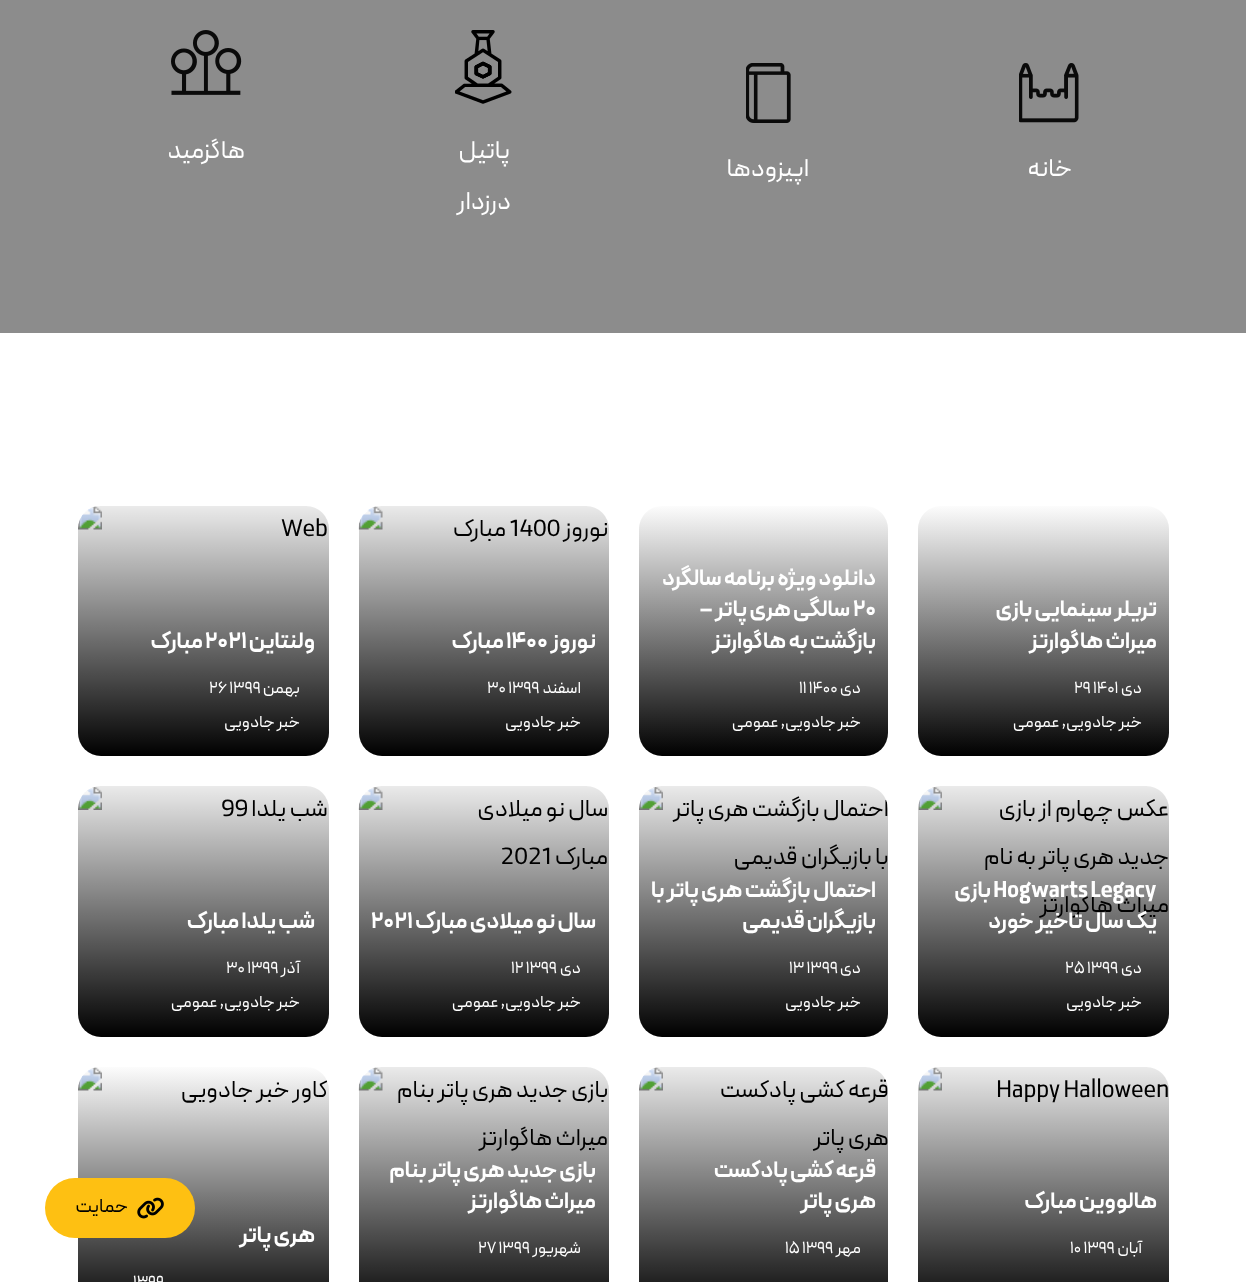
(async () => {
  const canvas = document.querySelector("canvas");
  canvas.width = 1246;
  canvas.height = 1282;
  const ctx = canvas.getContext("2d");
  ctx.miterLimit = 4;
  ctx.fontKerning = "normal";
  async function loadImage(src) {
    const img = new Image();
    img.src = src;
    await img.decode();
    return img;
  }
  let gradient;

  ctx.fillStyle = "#ffffff";
  ctx.fillRect(0, 0, 1246, 1282);
  ctx.fillStyle = "#8c8c8c";
  ctx.fillRect(0, 0, 1246, 333);
  ctx.drawImage(await loadImage("img/1.png"), 1019, 63, 60, 60);
  ctx.drawImage(await loadImage("img/2.png"), 746, 63, 45, 60);
  ctx.drawImage(await loadImage("img/3.png"), 455, 30, 57, 74);
  ctx.drawImage(await loadImage("img/4.png"), 171, 30, 71, 65);
  gradient = ctx.createLinearGradient(1043, 756, 1043, 506);
  gradient.addColorStop(0, "#000000");
  gradient.addColorStop(1, "#fcfcfc");
  ctx.fillStyle = gradient;
  ctx.beginPath();
  ctx.roundRect(918, 506, 251, 250, 23);
  ctx.fill();
  gradient = ctx.createLinearGradient(764, 756, 764, 506);
  gradient.addColorStop(0, "#000000");
  gradient.addColorStop(1, "#fcfcfc");
  ctx.fillStyle = gradient;
  ctx.beginPath();
  ctx.roundRect(639, 506, 249, 250, 23);
  ctx.fill();
  ctx.fillStyle = "#ededed";
  ctx.beginPath();
  ctx.roundRect(359, 506, 250, 250, 23);
  ctx.fill();
  ctx.drawImage(await loadImage("img/5.png"), 358, 506, 249, 36);
  gradient = ctx.createLinearGradient(484, 756, 484, 506);
  gradient.addColorStop(0, "#000000");
  gradient.addColorStop(1, "rgba(0, 0, 0, 0.01)");
  ctx.fillStyle = gradient;
  ctx.beginPath();
  ctx.roundRect(359, 506, 250, 250, 23);
  ctx.fill();
  ctx.fillStyle = "#ededed";
  ctx.beginPath();
  ctx.roundRect(78, 506, 251, 250, 23);
  ctx.fill();
  ctx.drawImage(await loadImage("img/6.png"), 78, 506, 249, 31);
  gradient = ctx.createLinearGradient(203, 756, 203, 506);
  gradient.addColorStop(0, "#000000");
  gradient.addColorStop(1, "rgba(0, 0, 0, 0.01)");
  ctx.fillStyle = gradient;
  ctx.beginPath();
  ctx.roundRect(78, 506, 251, 250, 23);
  ctx.fill();
  ctx.fillStyle = "#ededed";
  ctx.beginPath();
  ctx.roundRect(918, 786, 251, 251, 23);
  ctx.fill();
  ctx.drawImage(await loadImage("img/7.png"), 918, 787, 250, 131);
  gradient = ctx.createLinearGradient(1043, 1037, 1043, 786);
  gradient.addColorStop(0, "#000000");
  gradient.addColorStop(1, "rgba(0, 0, 0, 0.01)");
  ctx.fillStyle = gradient;
  ctx.beginPath();
  ctx.roundRect(918, 786, 251, 251, 23);
  ctx.fill();
  ctx.fillStyle = "#ededed";
  ctx.beginPath();
  ctx.roundRect(639, 786, 249, 251, 23);
  ctx.fill();
  ctx.drawImage(await loadImage("img/8.png"), 639, 787, 249, 83);
  gradient = ctx.createLinearGradient(764, 1037, 764, 786);
  gradient.addColorStop(0, "#000000");
  gradient.addColorStop(1, "rgba(0, 0, 0, 0.01)");
  ctx.fillStyle = gradient;
  ctx.beginPath();
  ctx.roundRect(639, 786, 249, 251, 23);
  ctx.fill();
  ctx.fillStyle = "#ededed";
  ctx.beginPath();
  ctx.roundRect(359, 786, 250, 251, 23);
  ctx.fill();
  ctx.drawImage(await loadImage("img/9.png"), 358, 787, 249, 83);
  gradient = ctx.createLinearGradient(484, 1037, 484, 786);
  gradient.addColorStop(0, "#000000");
  gradient.addColorStop(1, "rgba(0, 0, 0, 0.01)");
  ctx.fillStyle = gradient;
  ctx.beginPath();
  ctx.roundRect(359, 786, 250, 251, 23);
  ctx.fill();
  ctx.fillStyle = "#ededed";
  ctx.beginPath();
  ctx.roundRect(78, 786, 251, 251, 23);
  ctx.fill();
  ctx.drawImage(await loadImage("img/10.png"), 78, 787, 249, 34);
  gradient = ctx.createLinearGradient(203, 1037, 203, 786);
  gradient.addColorStop(0, "#000000");
  gradient.addColorStop(1, "rgba(0, 0, 0, 0.01)");
  ctx.fillStyle = gradient;
  ctx.beginPath();
  ctx.roundRect(78, 786, 251, 251, 23);
  ctx.fill();
  ctx.fillStyle = "#ededed";
  ctx.beginPath();
  ctx.roundRect(918, 1067, 251, 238, 23);
  ctx.fill();
  ctx.drawImage(await loadImage("img/11.png"), 918, 1067, 250, 36);
  gradient = ctx.createLinearGradient(1043, 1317, 1043, 1067);
  gradient.addColorStop(0, "#000000");
  gradient.addColorStop(1, "rgba(0, 0, 0, 0.01)");
  ctx.fillStyle = gradient;
  ctx.beginPath();
  ctx.roundRect(918, 1067, 251, 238, 23);
  ctx.fill();
  ctx.fillStyle = "#ededed";
  ctx.beginPath();
  ctx.roundRect(639, 1067, 249, 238, 23);
  ctx.fill();
  ctx.drawImage(await loadImage("img/12.png"), 639, 1067, 249, 86);
  gradient = ctx.createLinearGradient(764, 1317, 764, 1067);
  gradient.addColorStop(0, "#000000");
  gradient.addColorStop(1, "rgba(0, 0, 0, 0.01)");
  ctx.fillStyle = gradient;
  ctx.beginPath();
  ctx.roundRect(639, 1067, 249, 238, 23);
  ctx.fill();
  ctx.fillStyle = "#ededed";
  ctx.beginPath();
  ctx.roundRect(359, 1067, 250, 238, 23);
  ctx.fill();
  ctx.drawImage(await loadImage("img/13.png"), 358, 1067, 249, 84);
  gradient = ctx.createLinearGradient(484, 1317, 484, 1067);
  gradient.addColorStop(0, "#000000");
  gradient.addColorStop(1, "rgba(0, 0, 0, 0.01)");
  ctx.fillStyle = gradient;
  ctx.beginPath();
  ctx.roundRect(359, 1067, 250, 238, 23);
  ctx.fill();
  ctx.drawImage(await loadImage("img/14.png"), 78, 1067, 249, 36);
  gradient = ctx.createLinearGradient(203, 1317, 203, 1067);
  gradient.addColorStop(0, "#000000");
  gradient.addColorStop(1, "rgba(0, 0, 0, 0.01)");
  ctx.fillStyle = gradient;
  ctx.beginPath();
  ctx.roundRect(78, 1067, 251, 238, 23);
  ctx.fill();
  ctx.fillStyle = "#fec012";
  ctx.beginPath();
  ctx.roundRect(45, 1178, 150, 60, 30);
  ctx.fill();
  ctx.drawImage(await loadImage("img/15.png"), 137, 1197, 27, 22);
  ctx.direction = "rtl";
  ctx.font = "25.5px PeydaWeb";
  ctx.fillStyle = "#ffffff";
  for (const [text, x, y] of [
    ["خانه", 1072, 176],
    ["اپیزودها", 809, 176],
    ["پاتیل", 510, 158],
    ["درزدار", 511, 209],
    ["هاگزمید", 245, 158],
  ]) {
    ctx.fillText(text, x, y);
  }
  ctx.font = "bold 22.5px PeydaWeb";
  ctx.fillText("تریلر سینمایی بازی", 1157, 616);
  ctx.fillText("میراث هاگوارتز", 1157, 648);
  ctx.font = "16.75px PeydaWeb";
  ctx.fillText("دی", 1142, 693);
  ctx.direction = "ltr";
  ctx.fillText("۲۹ ۱۴۰۱", 1074, 693);
  ctx.direction = "rtl";
  ctx.fillText("خبر جادویی, عمومی", 1142, 727);
  ctx.font = "bold 22.5px PeydaWeb";
  ctx.fillText("دانلود ویژه برنامه سالگرد", 876, 585);
  ctx.direction = "ltr";
  ctx.fillText("۲۰", 853, 616);
  ctx.direction = "rtl";
  ctx.fillText("سالگی هری پاتر –", 850, 616);
  ctx.fillText("بازگشت به هاگوارتز", 876, 648);
  ctx.font = "16.75px PeydaWeb";
  ctx.fillText("دی", 861, 693);
  ctx.direction = "ltr";
  ctx.fillText("۱۱ ۱۴۰۰", 799, 693);
  ctx.direction = "rtl";
  ctx.fillText("خبر جادویی, عمومی", 861, 727);
  ctx.font = "bold 22.5px PeydaWeb";
  ctx.fillText("نوروز", 596, 648);
  ctx.direction = "ltr";
  ctx.fillText("۱۴۰۰", 506, 648);
  ctx.direction = "rtl";
  ctx.fillText("مبارک", 504, 648);
  ctx.font = "16.75px PeydaWeb";
  ctx.fillText("اسفند", 581, 693);
  ctx.direction = "ltr";
  ctx.fillText("۳۰ ۱۳۹۹", 487, 693);
  ctx.direction = "rtl";
  ctx.fillText("خبر جادویی", 581, 727);
  ctx.font = "bold 22.5px PeydaWeb";
  ctx.fillText("ولنتاین", 315, 648);
  ctx.direction = "ltr";
  ctx.fillText("۲۰۲۱", 205, 648);
  ctx.direction = "rtl";
  ctx.fillText("مبارک", 203, 648);
  ctx.font = "16.75px PeydaWeb";
  ctx.fillText("بهمن", 300, 693);
  ctx.direction = "ltr";
  ctx.fillText("۲۶ ۱۳۹۹", 209, 693);
  ctx.direction = "rtl";
  ctx.fillText("خبر جادویی", 300, 727);
  ctx.direction = "ltr";
  ctx.font = "bold 22.5px PeydaWeb";
  ctx.fillText("Hogwarts Legacy", 993, 897);
  ctx.direction = "rtl";
  ctx.fillText("بازی", 991, 897);
  ctx.fillText("یک سال تاخیر خورد", 1157, 928);
  ctx.font = "16.75px PeydaWeb";
  ctx.fillText("دی", 1142, 973);
  ctx.direction = "ltr";
  ctx.fillText("۲۵ ۱۳۹۹", 1065, 973);
  ctx.direction = "rtl";
  ctx.fillText("خبر جادویی", 1142, 1007);
  ctx.font = "bold 22.5px PeydaWeb";
  ctx.fillText("احتمال بازگشت هری پاتر با", 876, 897);
  ctx.fillText("بازیگران قدیمی", 876, 928);
  ctx.font = "16.75px PeydaWeb";
  ctx.fillText("دی", 861, 973);
  ctx.direction = "ltr";
  ctx.fillText("۱۳ ۱۳۹۹", 789, 973);
  ctx.direction = "rtl";
  ctx.fillText("خبر جادویی", 861, 1007);
  ctx.font = "bold 22.5px PeydaWeb";
  ctx.fillText("سال نو میلادی مبارک", 596, 928);
  ctx.direction = "ltr";
  ctx.fillText("۲۰۲۱", 371, 928);
  ctx.direction = "rtl";
  ctx.font = "16.75px PeydaWeb";
  ctx.fillText("دی", 581, 973);
  ctx.direction = "ltr";
  ctx.fillText("۱۲ ۱۳۹۹", 511, 973);
  ctx.direction = "rtl";
  ctx.fillText("خبر جادویی, عمومی", 581, 1007);
  ctx.font = "bold 22.5px PeydaWeb";
  ctx.fillText("شب یلدا مبارک", 315, 928);
  ctx.font = "16.75px PeydaWeb";
  ctx.fillText("آذر", 300, 973);
  ctx.direction = "ltr";
  ctx.fillText("۳۰ ۱۳۹۹", 226, 973);
  ctx.direction = "rtl";
  ctx.fillText("خبر جادویی, عمومی", 300, 1007);
  ctx.font = "bold 22.5px PeydaWeb";
  ctx.fillText("هالووین مبارک", 1157, 1208);
  ctx.font = "16.75px PeydaWeb";
  ctx.fillText("آبان", 1142, 1253);
  ctx.direction = "ltr";
  ctx.fillText("۱۰ ۱۳۹۹", 1070, 1253);
  ctx.direction = "rtl";
  ctx.font = "bold 22.5px PeydaWeb";
  ctx.fillText("قرعه کشی پادکست", 876, 1177);
  ctx.fillText("هری پاتر", 876, 1208);
  ctx.font = "16.75px PeydaWeb";
  ctx.fillText("مهر", 861, 1253);
  ctx.direction = "ltr";
  ctx.fillText("۱۵ ۱۳۹۹", 785, 1253);
  ctx.direction = "rtl";
  ctx.font = "bold 22.5px PeydaWeb";
  ctx.fillText("بازی جدید هری پاتر بنام", 596, 1177);
  ctx.fillText("میراث هاگوارتز", 596, 1208);
  ctx.font = "16.75px PeydaWeb";
  ctx.fillText("شهریور", 581, 1253);
  ctx.direction = "ltr";
  ctx.fillText("۲۷ ۱۳۹۹", 478, 1253);
  ctx.direction = "rtl";
  ctx.font = "bold 22.5px PeydaWeb";
  ctx.fillText("هری پاتر", 315, 1242);
  ctx.direction = "ltr";
  ctx.font = "16.75px PeydaWeb";
  ctx.fillText("۱۳۹۹", 133, 1287);
  ctx.direction = "rtl";
  ctx.font = "19.5px PeydaWeb";
  ctx.fillStyle = "#000000";
  ctx.fillText("حمایت", 128, 1212);
})();
